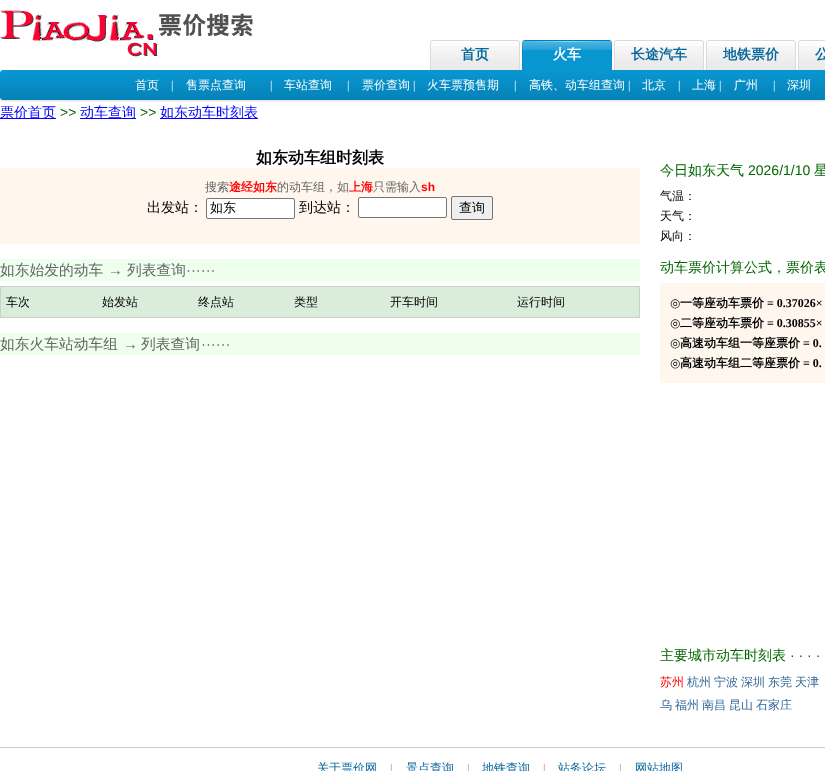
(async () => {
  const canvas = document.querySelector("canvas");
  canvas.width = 825;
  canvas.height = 771;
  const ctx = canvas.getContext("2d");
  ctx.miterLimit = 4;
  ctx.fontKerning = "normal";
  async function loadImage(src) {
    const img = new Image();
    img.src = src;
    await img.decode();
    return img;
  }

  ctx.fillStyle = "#ffffff";
  ctx.fillRect(0, 0, 825, 771);
  ctx.drawImage(await loadImage("img/1.png"), 0, 10, 253, 47);
  ctx.drawImage(await loadImage("img/2.png"), 430, 40, 90, 30);
  ctx.drawImage(await loadImage("img/3.png"), 522, 40, 90, 30);
  ctx.drawImage(await loadImage("img/2.png"), 614, 40, 90, 30);
  ctx.drawImage(await loadImage("img/2.png"), 706, 40, 90, 30);
  ctx.drawImage(await loadImage("img/4.png"), 798, 40, 27, 30);
  ctx.drawImage(await loadImage("img/5.png"), 3, 70, 822, 32);
  ctx.drawImage(await loadImage("img/6.png"), 0, 70, 3, 32);
  for (const [x, y, w, h, color] of [
    [0, 118, 56, 1, "#0000ff"],
    [80, 118, 56, 1, "#0000ff"],
    [160, 118, 98, 1, "#0000ff"],
    [0, 168, 640, 76, "#fff6ee"],
  ]) {
    ctx.fillStyle = color;
    ctx.fillRect(x, y, w, h);
  }
  ctx.fillStyle = "#ffffff";
  ctx.beginPath();
  ctx.roundRect(206.5, 198.5, 88, 20, 1.5);
  ctx.fill();
  ctx.strokeStyle = "#767676";
  ctx.stroke();
  ctx.beginPath();
  ctx.roundRect(358.5, 197.5, 88, 20, 1.5);
  ctx.fill();
  ctx.stroke();
  ctx.fillStyle = "#efefef";
  ctx.beginPath();
  ctx.roundRect(451.5, 196.5, 41, 23, 1.5);
  ctx.fill();
  ctx.stroke();
  for (const [x, y, w, h, color] of [
    [0, 259, 640, 22, "#eeffee"],
    [0, 286, 640, 32, "#c5d5c5"],
    [1, 287, 638, 30, "#d9edda"],
    [0, 333, 640, 22, "#eeffee"],
    [660, 283, 165, 100, "#fff6ee"],
    [0, 747, 825, 1, "#cccccc"],
  ]) {
    ctx.fillStyle = color;
    ctx.fillRect(x, y, w, h);
  }
  ctx.font = "bold 14px WenQuanYi Zen Hei";
  ctx.fillStyle = "#07679c";
  ctx.fillText("首页", 461, 59);
  ctx.fillStyle = "#ffffff";
  ctx.fillText("火车", 553, 59);
  ctx.fillStyle = "#07679c";
  for (const [text, x, y] of [
    ["长途汽车", 631, 59],
    ["地铁票价", 723, 59],
    ["公", 815, 59],
  ]) {
    ctx.fillText(text, x, y);
  }
  ctx.font = "500 12px WenQuanYi Zen Hei";
  ctx.fillStyle = "#ffffff";
  ctx.fillText("首页", 135, 89);
  ctx.font = "12px Liberation Serif";
  ctx.fillText("|", 171, 89);
  ctx.font = "500 12px WenQuanYi Zen Hei";
  ctx.fillText("售票点查询", 186, 89);
  ctx.font = "12px Liberation Serif";
  ctx.fillText("|", 270, 89);
  ctx.font = "500 12px WenQuanYi Zen Hei";
  ctx.fillText("车站查询", 284, 89);
  ctx.font = "12px Liberation Serif";
  ctx.fillText("|", 347, 89);
  ctx.font = "500 12px WenQuanYi Zen Hei";
  ctx.fillText("票价查询", 362, 89);
  ctx.font = "12px Liberation Serif";
  ctx.fillText("|", 413, 89);
  ctx.font = "500 12px WenQuanYi Zen Hei";
  ctx.fillText("火车票预售期", 427, 89);
  ctx.font = "12px Liberation Serif";
  ctx.fillText("|", 514, 89);
  ctx.font = "500 12px WenQuanYi Zen Hei";
  ctx.fillText("高铁、动车组查询", 529, 89);
  ctx.font = "12px Liberation Serif";
  ctx.fillText("|", 628, 89);
  ctx.font = "500 12px WenQuanYi Zen Hei";
  ctx.fillText("北京", 642, 89);
  ctx.font = "12px Liberation Serif";
  ctx.fillText("|", 678, 89);
  ctx.font = "500 12px WenQuanYi Zen Hei";
  ctx.fillText("上海", 692, 89);
  ctx.font = "12px Liberation Serif";
  ctx.fillText("|", 719, 89);
  ctx.font = "500 12px WenQuanYi Zen Hei";
  ctx.fillText("广州", 734, 89);
  ctx.font = "12px Liberation Serif";
  ctx.fillText("|", 773, 89);
  ctx.font = "500 12px WenQuanYi Zen Hei";
  ctx.fillText("深圳", 787, 89);
  ctx.font = "500 14px WenQuanYi Zen Hei";
  ctx.fillStyle = "#0000ff";
  ctx.fillText("票价首页", 0, 117);
  ctx.font = "14px Liberation Sans";
  ctx.fillStyle = "#006600";
  ctx.fillText(">>", 60, 117);
  ctx.font = "500 14px WenQuanYi Zen Hei";
  ctx.fillStyle = "#0000ff";
  ctx.fillText("动车查询", 80, 117);
  ctx.font = "14px Liberation Sans";
  ctx.fillStyle = "#006600";
  ctx.fillText(">>", 140, 117);
  ctx.font = "500 14px WenQuanYi Zen Hei";
  ctx.fillStyle = "#0000ff";
  ctx.fillText("如东动车时刻表", 160, 117);
  ctx.font = "bold 16px WenQuanYi Zen Hei";
  ctx.fillStyle = "#000000";
  ctx.fillText("如东动车组时刻表", 256, 163);
  ctx.font = "500 12px WenQuanYi Zen Hei";
  ctx.fillStyle = "#666666";
  ctx.fillText("搜索", 205, 191);
  ctx.font = "bold 12px WenQuanYi Zen Hei";
  ctx.fillStyle = "#ff0000";
  ctx.fillText("途经如东", 229, 191);
  ctx.font = "500 12px WenQuanYi Zen Hei";
  ctx.fillStyle = "#666666";
  ctx.fillText("的动车组，如", 277, 191);
  ctx.font = "bold 12px WenQuanYi Zen Hei";
  ctx.fillStyle = "#ff0000";
  ctx.fillText("上海", 349, 191);
  ctx.font = "500 12px WenQuanYi Zen Hei";
  ctx.fillStyle = "#666666";
  ctx.fillText("只需输入", 373, 191);
  ctx.font = "bold 12px Liberation Sans";
  ctx.fillStyle = "#ff0000";
  ctx.fillText("sh", 421, 191);
  ctx.font = "500 14px WenQuanYi Zen Hei";
  ctx.fillStyle = "#000000";
  ctx.fillText("出发站：", 147, 212);
  ctx.font = "500 13px WenQuanYi Zen Hei";
  ctx.fillText("如东", 210, 212);
  ctx.font = "500 14px WenQuanYi Zen Hei";
  ctx.fillText("到达站：", 299, 212);
  ctx.font = "500 13px WenQuanYi Zen Hei";
  ctx.fillText("查询", 459, 212);
  ctx.font = "500 14.75px WenQuanYi Zen Hei";
  ctx.fillStyle = "#666666";
  ctx.fillText("如东始发的动车", 0, 275);
  ctx.font = "14.75px Liberation Sans";
  ctx.fillText("→", 108, 275);
  ctx.font = "500 14.75px WenQuanYi Zen Hei";
  ctx.fillText("列表查询", 127, 275);
  ctx.font = "14.75px Liberation Sans";
  ctx.fillText("······", 186, 275);
  ctx.font = "500 12px WenQuanYi Zen Hei";
  ctx.fillStyle = "#000000";
  for (const [text, x, y] of [
    ["车次", 6, 306],
    ["始发站", 102, 306],
    ["终点站", 198, 306],
    ["类型", 294, 306],
    ["开车时间", 390, 306],
    ["运行时间", 517, 306],
  ]) {
    ctx.fillText(text, x, y);
  }
  ctx.font = "500 14.75px WenQuanYi Zen Hei";
  ctx.fillStyle = "#666666";
  ctx.fillText("如东火车站动车组", 0, 349);
  ctx.font = "14.75px Liberation Sans";
  ctx.fillText("→", 123, 349);
  ctx.font = "500 14.75px WenQuanYi Zen Hei";
  ctx.fillText("列表查询", 141, 349);
  ctx.font = "14.75px Liberation Sans";
  ctx.fillText("······", 201, 349);
  ctx.font = "500 14px WenQuanYi Zen Hei";
  ctx.fillStyle = "#006600";
  ctx.fillText("今日如东天气", 660, 175);
  ctx.font = "14px Liberation Sans";
  ctx.fillText("2026/1/10", 748, 175);
  ctx.font = "500 14px WenQuanYi Zen Hei";
  ctx.fillText("星", 814, 175);
  ctx.font = "500 12px WenQuanYi Zen Hei";
  ctx.fillStyle = "#000000";
  for (const [text, x, y] of [
    ["气温：", 660, 200],
    ["天气：", 660, 220],
    ["风向：", 660, 240],
  ]) {
    ctx.fillText(text, x, y);
  }
  ctx.font = "500 14px WenQuanYi Zen Hei";
  ctx.fillStyle = "#006600";
  ctx.fillText("动车票价计算公式，票价表", 660, 272);
  ctx.font = "12px DejaVu Sans";
  ctx.fillStyle = "#000000";
  ctx.fillText("◎", 670, 307);
  ctx.font = "bold 12px WenQuanYi Zen Hei";
  ctx.fillText("一等座动车票价", 680, 307);
  ctx.font = "bold 12px Liberation Serif";
  ctx.fillText("= 0.37026×", 767, 307);
  ctx.font = "12px DejaVu Sans";
  ctx.fillText("◎", 670, 327);
  ctx.font = "bold 12px WenQuanYi Zen Hei";
  ctx.fillText("二等座动车票价", 680, 327);
  ctx.font = "bold 12px Liberation Serif";
  ctx.fillText("= 0.30855×", 767, 327);
  ctx.font = "12px DejaVu Sans";
  ctx.fillText("◎", 670, 347);
  ctx.font = "bold 12px WenQuanYi Zen Hei";
  ctx.fillText("高速动车组一等座票价", 680, 347);
  ctx.font = "bold 12px Liberation Serif";
  ctx.fillText("= 0.", 803, 347);
  ctx.font = "12px DejaVu Sans";
  ctx.fillText("◎", 670, 367);
  ctx.font = "bold 12px WenQuanYi Zen Hei";
  ctx.fillText("高速动车组二等座票价", 680, 367);
  ctx.font = "bold 12px Liberation Serif";
  ctx.fillText("= 0.", 803, 367);
  ctx.font = "500 14px WenQuanYi Zen Hei";
  ctx.fillStyle = "#006600";
  ctx.fillText("主要城市动车时刻表", 660, 660);
  ctx.font = "14px Liberation Sans";
  ctx.fillText("· · · ·", 790, 660);
  ctx.font = "500 12px WenQuanYi Zen Hei";
  ctx.fillStyle = "#ff0000";
  ctx.fillText("苏州", 660, 686);
  ctx.fillStyle = "#336699";
  for (const [text, x, y] of [
    ["杭州", 687, 686],
    ["宁波", 714, 686],
    ["深圳", 741, 686],
    ["东莞", 768, 686],
    ["天津", 795, 686],
    ["乌", 660, 709],
    ["福州", 675, 709],
    ["南昌", 702, 709],
    ["昆山", 729, 709],
    ["石家庄", 756, 709],
  ]) {
    ctx.fillText(text, x, y);
  }
  ctx.fillStyle = "#07679c";
  ctx.fillText("关于票价网", 317, 772);
  ctx.font = "12px Liberation Serif";
  ctx.fillStyle = "#929292";
  ctx.fillText("|", 390, 772);
  ctx.font = "500 12px WenQuanYi Zen Hei";
  ctx.fillStyle = "#07679c";
  ctx.fillText("景点查询", 406, 772);
  ctx.font = "12px Liberation Serif";
  ctx.fillStyle = "#929292";
  ctx.fillText("|", 467, 772);
  ctx.font = "500 12px WenQuanYi Zen Hei";
  ctx.fillStyle = "#07679c";
  ctx.fillText("地铁查询", 482, 772);
  ctx.font = "12px Liberation Serif";
  ctx.fillStyle = "#929292";
  ctx.fillText("|", 543, 772);
  ctx.font = "500 12px WenQuanYi Zen Hei";
  ctx.fillStyle = "#07679c";
  ctx.fillText("站务论坛", 558, 772);
  ctx.font = "12px Liberation Serif";
  ctx.fillStyle = "#929292";
  ctx.fillText("|", 619, 772);
  ctx.font = "500 12px WenQuanYi Zen Hei";
  ctx.fillStyle = "#07679c";
  ctx.fillText("网站地图", 635, 772);
})();
